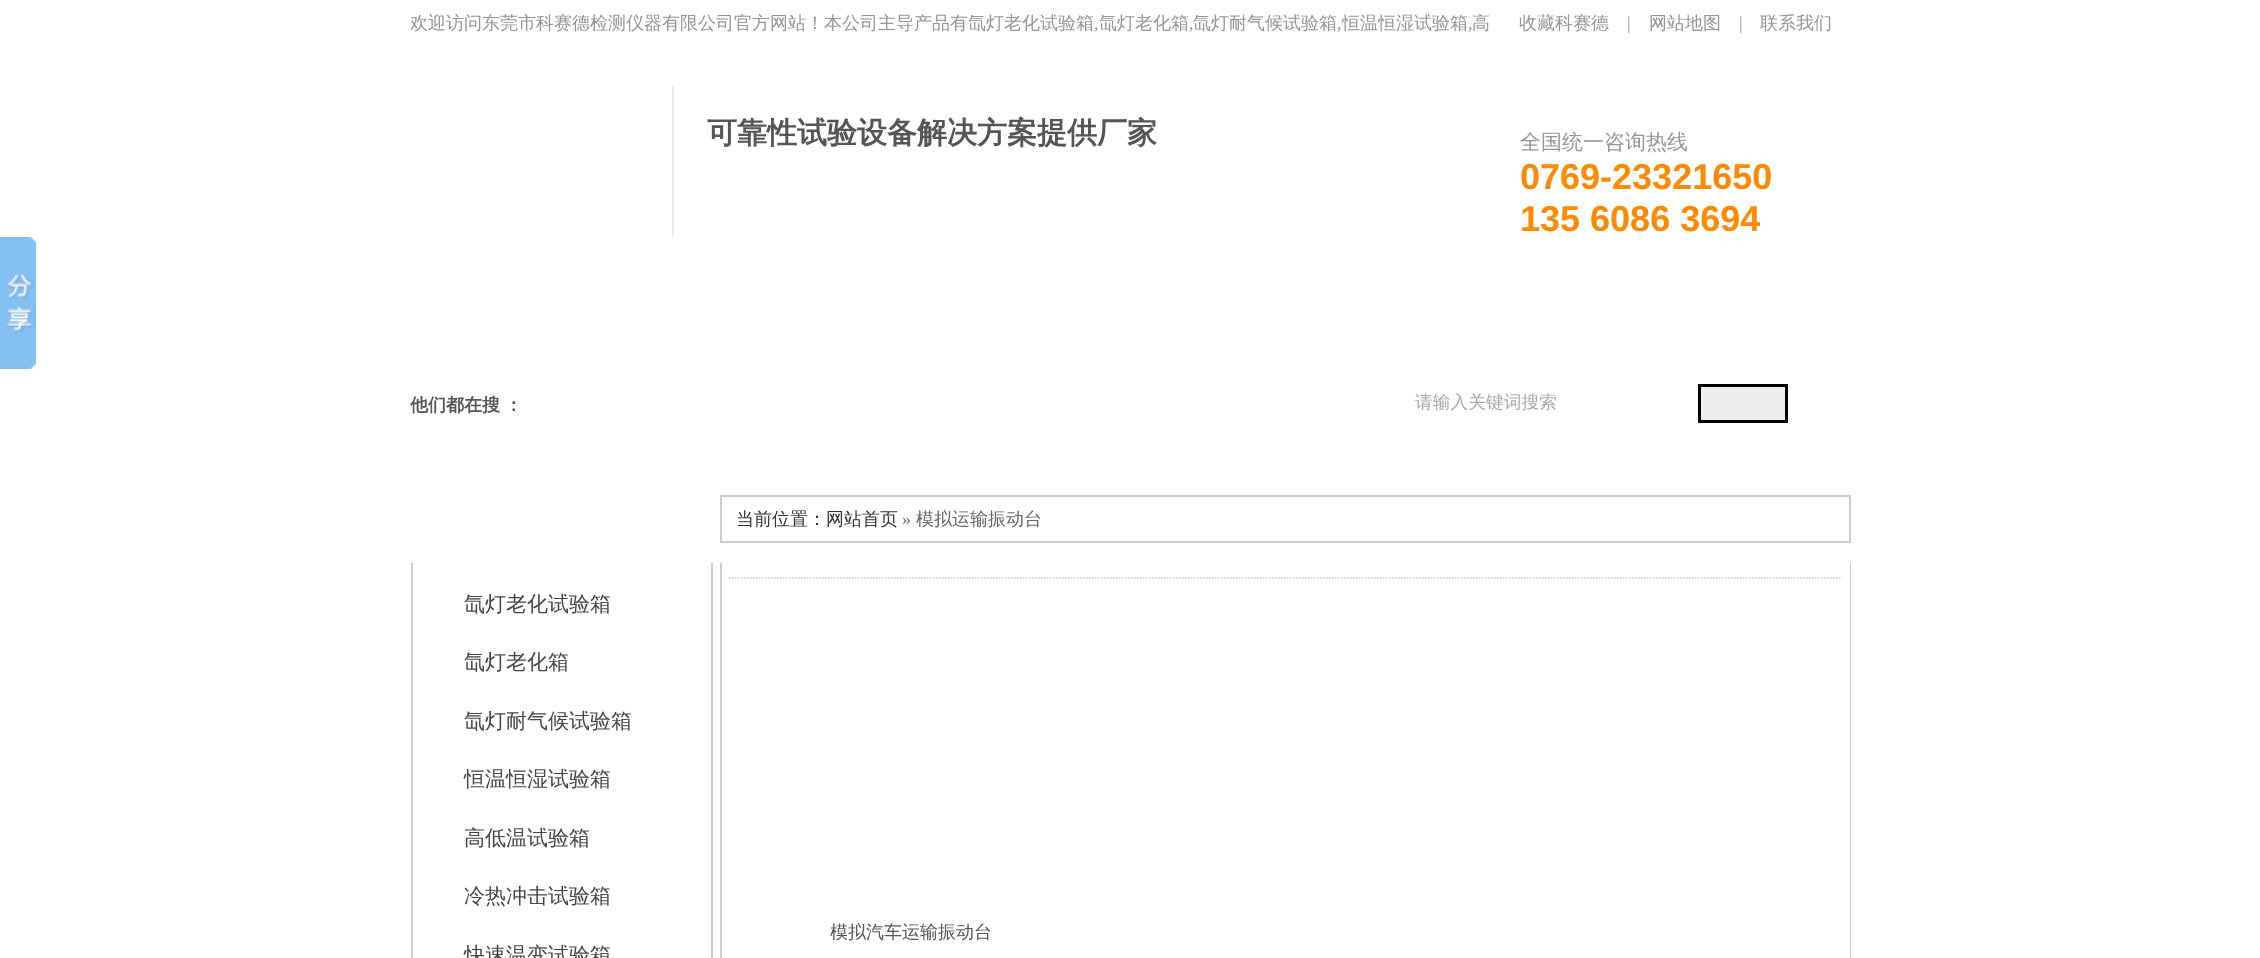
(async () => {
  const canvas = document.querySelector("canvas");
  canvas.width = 2260;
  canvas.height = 958;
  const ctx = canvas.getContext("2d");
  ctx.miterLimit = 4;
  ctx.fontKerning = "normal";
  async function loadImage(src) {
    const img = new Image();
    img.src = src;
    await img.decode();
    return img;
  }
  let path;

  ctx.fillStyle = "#ffffff";
  ctx.fillRect(0, 0, 2260, 958);
  ctx.fillStyle = "#eaeaea";
  ctx.fillRect(672, 86, 2, 151);
  ctx.drawImage(await loadImage("img/1.png"), 0, 237, 36, 132);
  ctx.fillStyle = "#efefef";
  ctx.beginPath();
  ctx.rect(1699.5, 385.5, 87, 36);
  ctx.fill();
  ctx.strokeStyle = "#000000";
  ctx.lineWidth = 3;
  ctx.stroke();
  ctx.fillStyle = "#cccccc";
  ctx.fillRect(711, 563, 2, 395);
  ctx.fillRect(411, 563, 2, 395);
  ctx.strokeStyle = "#cccccc";
  ctx.lineWidth = 2;
  ctx.strokeRect(721, 496, 1129, 46);
  ctx.fillRect(1850, 563, 1, 395);
  ctx.fillRect(720, 563, 2, 395);
  path = new Path2D("M729 578H1842");
  ctx.lineWidth = 1.5;
  ctx.setLineDash([1.5, 1.5]);
  ctx.stroke(path);
  ctx.save();
  ctx.beginPath();
  ctx.rect(411, 0, 1440, 47);
  ctx.clip();
  ctx.font = "500 18px WenQuanYi Zen Hei";
  ctx.fillStyle = "#959595";
  ctx.fillText("欢迎访问东莞市科赛德检测仪器有限公司官方网站！本公司主导产品有", 410, 29);
  ctx.restore();
  ctx.font = "500 18px WenQuanYi Zen Hei";
  ctx.fillStyle = "#959595";
  ctx.fillText("氙灯老化试验箱", 968, 29);
  ctx.font = "18px Liberation Serif";
  ctx.fillText(",", 1094, 29);
  ctx.font = "500 18px WenQuanYi Zen Hei";
  ctx.fillText("氙灯老化箱", 1099, 29);
  ctx.font = "18px Liberation Serif";
  ctx.fillText(",", 1189, 29);
  ctx.font = "500 18px WenQuanYi Zen Hei";
  ctx.fillText("氙灯耐气候试验箱", 1193, 29);
  ctx.font = "18px Liberation Serif";
  ctx.fillText(",", 1337, 29);
  ctx.font = "500 18px WenQuanYi Zen Hei";
  ctx.fillText("恒温恒湿试验箱", 1342, 29);
  ctx.font = "18px Liberation Serif";
  ctx.fillText(",", 1468, 29);
  ctx.font = "500 18px WenQuanYi Zen Hei";
  ctx.fillText("高", 1472, 29);
  ctx.fillText("收藏科赛德", 1519, 29);
  ctx.font = "18px Liberation Serif";
  ctx.fillText("|", 1627, 29);
  ctx.font = "500 18px WenQuanYi Zen Hei";
  ctx.fillText("网站地图", 1649, 29);
  ctx.font = "18px Liberation Serif";
  ctx.fillText("|", 1739, 29);
  ctx.font = "500 18px WenQuanYi Zen Hei";
  ctx.fillText("联系我们", 1760, 29);
  ctx.font = "bold 30px WenQuanYi Zen Hei";
  ctx.fillStyle = "#555555";
  ctx.fillText("可靠性试验设备解决方案提供厂家", 707, 143);
  ctx.font = "500 21px WenQuanYi Zen Hei";
  ctx.fillStyle = "#959595";
  ctx.fillText("全国统一咨询热线", 1520, 149);
  ctx.font = "bold 36px Liberation Sans";
  ctx.fillStyle = "#ff8a01";
  ctx.fillText("0769-23321650", 1520, 189);
  ctx.fillText("135 6086 3694", 1520, 231);
  ctx.wordSpacing = "-1px";
  ctx.font = "bold 18px WenQuanYi Zen Hei";
  ctx.fillStyle = "#555555";
  ctx.fillText("他们都在搜 ：", 410, 411);
  ctx.wordSpacing = "0px";
  ctx.font = "500 17.75px WenQuanYi Zen Hei";
  ctx.fillStyle = "#a8a8a8";
  ctx.fillText("请输入关键词搜索", 1415, 408);
  ctx.font = "500 21px WenQuanYi Zen Hei";
  ctx.fillStyle = "#454545";
  for (const [text, x, y] of [
    ["氙灯老化试验箱", 464, 611],
    ["氙灯老化箱", 464, 669],
    ["氙灯耐气候试验箱", 464, 728],
    ["恒温恒湿试验箱", 464, 786],
    ["高低温试验箱", 464, 845],
    ["冷热冲击试验箱", 464, 903],
    ["快速温变试验箱", 464, 962],
  ]) {
    ctx.fillText(text, x, y);
  }
  ctx.font = "500 18px WenQuanYi Zen Hei";
  ctx.fillStyle = "#333333";
  ctx.fillText("当前位置：网站首页", 736, 525);
  ctx.font = "18px Liberation Serif";
  ctx.fillStyle = "#666666";
  ctx.fillText("»", 902, 525);
  ctx.font = "500 18px WenQuanYi Zen Hei";
  ctx.fillText("模拟运输振动台", 916, 525);
  ctx.fillStyle = "#555555";
  ctx.fillText("模拟汽车运输振动台", 830, 938);
})();
